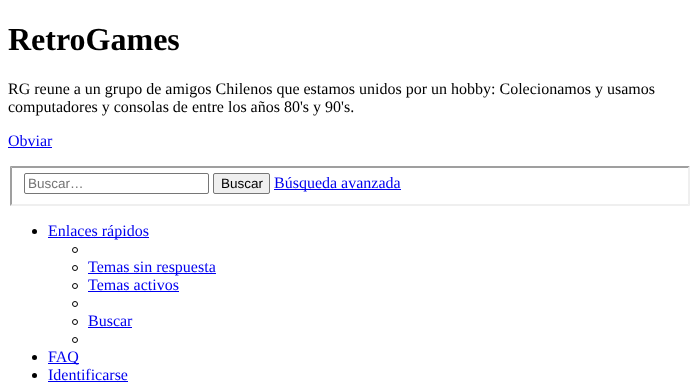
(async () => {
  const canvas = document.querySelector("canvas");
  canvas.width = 700;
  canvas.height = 387;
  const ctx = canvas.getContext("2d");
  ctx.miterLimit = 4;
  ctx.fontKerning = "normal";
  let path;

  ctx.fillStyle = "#ffffff";
  ctx.fillRect(0, 0, 700, 387);
  ctx.fillStyle = "#0000ee";
  ctx.fillRect(8, 147, 44, 1);
  ctx.fillStyle = "#9f9f9f";
  path = new Path2D("M10 166H690L688 168H12Z");
  ctx.fill(path);
  ctx.fillStyle = "#efefef";
  path = new Path2D("M690 166V206L688 204V168Z");
  ctx.fill(path);
  path = new Path2D("M690 206H10L12 204H688Z");
  ctx.fill(path);
  ctx.fillStyle = "#9f9f9f";
  path = new Path2D("M10 206V166L12 168V204Z");
  ctx.fill(path);
  ctx.beginPath();
  ctx.roundRect(24.5, 173.5, 184, 20, 1.5);
  ctx.strokeStyle = "#767676";
  ctx.stroke();
  ctx.fillStyle = "#efefef";
  ctx.beginPath();
  ctx.roundRect(213.5, 173.5, 56, 20, 1.5);
  ctx.fill();
  ctx.stroke();
  ctx.fillStyle = "#0000ee";
  ctx.fillRect(274, 189, 127, 1);
  ctx.fillStyle = "#000000";
  ctx.beginPath();
  ctx.arc(34.5, 231.5, 2.5, 0, Math.PI * 2);
  ctx.fill();
  ctx.fillStyle = "#0000ee";
  ctx.fillRect(48, 237, 101, 1);
  ctx.beginPath();
  ctx.arc(75, 250, 2.5, 0, Math.PI * 2);
  ctx.strokeStyle = "#000000";
  ctx.stroke();
  ctx.beginPath();
  ctx.arc(75, 268, 2.5, 0, Math.PI * 2);
  ctx.stroke();
  ctx.fillRect(88, 273, 128, 1);
  ctx.beginPath();
  ctx.arc(75, 286, 2.5, 0, Math.PI * 2);
  ctx.stroke();
  ctx.fillRect(88, 291, 91, 1);
  ctx.beginPath();
  ctx.arc(75, 304, 2.5, 0, Math.PI * 2);
  ctx.stroke();
  ctx.beginPath();
  ctx.arc(75, 322, 2.5, 0, Math.PI * 2);
  ctx.stroke();
  ctx.fillRect(88, 327, 44, 1);
  ctx.beginPath();
  ctx.arc(75, 340, 2.5, 0, Math.PI * 2);
  ctx.stroke();
  ctx.fillStyle = "#000000";
  ctx.beginPath();
  ctx.arc(34.5, 357.5, 2.5, 0, Math.PI * 2);
  ctx.fill();
  ctx.fillStyle = "#0000ee";
  ctx.fillRect(48, 363, 31, 1);
  ctx.fillStyle = "#000000";
  ctx.beginPath();
  ctx.arc(34.5, 375.5, 2.5, 0, Math.PI * 2);
  ctx.fill();
  ctx.fillStyle = "#0000ee";
  ctx.fillRect(48, 381, 80, 1);
  ctx.font = "bold 32px Liberation Serif";
  ctx.fillStyle = "#000000";
  ctx.fillText("RetroGames", 8, 50);
  ctx.font = "16px Liberation Serif";
  ctx.fillText("RG reune a un grupo de amigos Chilenos que estamos unidos por un hobby: Colecionamos y usamos", 8, 94);
  ctx.fillText("computadores y consolas de entre los años 80's y 90's.", 8, 112);
  ctx.fillStyle = "#0000ee";
  ctx.fillText("Obviar", 8, 146);
  ctx.font = "13.5px Liberation Sans";
  ctx.fillStyle = "#757575";
  ctx.fillText("Buscar…", 28, 188);
  ctx.fillStyle = "#000000";
  ctx.fillText("Buscar", 221, 188);
  ctx.font = "16px Liberation Serif";
  ctx.fillStyle = "#0000ee";
  for (const [text, x, y] of [
    ["Búsqueda avanzada", 274, 188],
    ["Enlaces rápidos", 48, 236],
    ["Temas sin respuesta", 88, 272],
    ["Temas activos", 88, 290],
    ["Buscar", 88, 326],
    ["FAQ", 48, 362],
    ["Identificarse", 48, 380],
  ]) {
    ctx.fillText(text, x, y);
  }
})();
